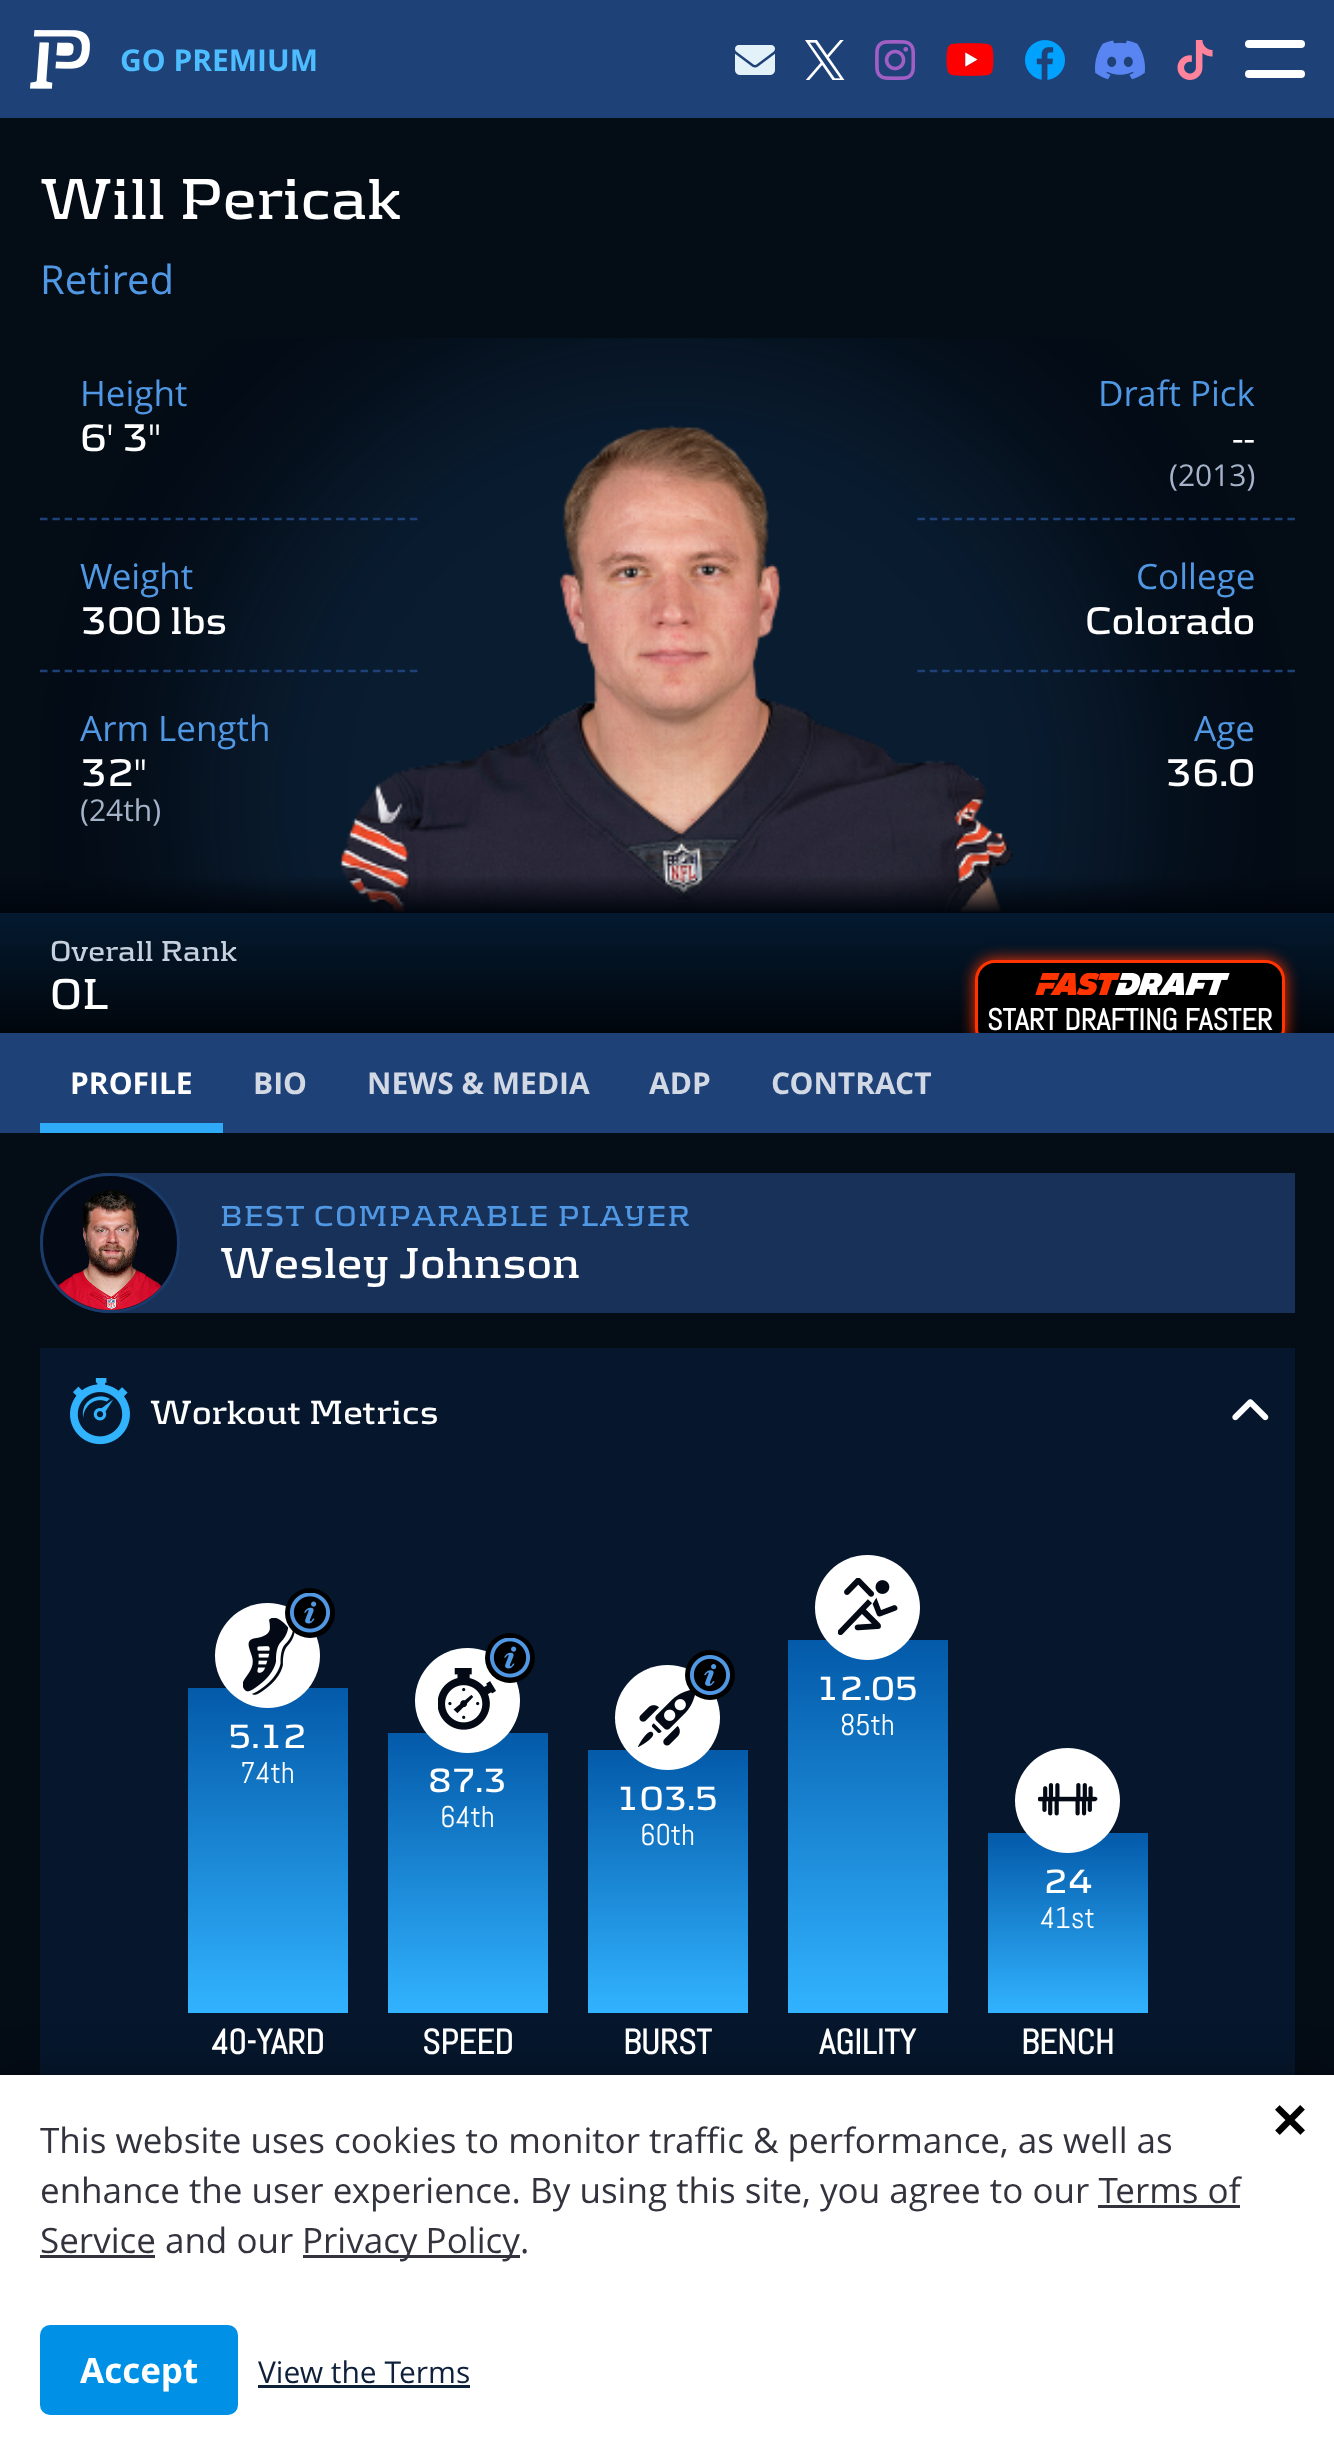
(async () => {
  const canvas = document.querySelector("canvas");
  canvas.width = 1334;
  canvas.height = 2454;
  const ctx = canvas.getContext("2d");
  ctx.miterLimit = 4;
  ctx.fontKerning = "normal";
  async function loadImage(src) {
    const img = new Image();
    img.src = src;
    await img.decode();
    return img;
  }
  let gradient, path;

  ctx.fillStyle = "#040c16";
  ctx.fillRect(0, 0, 1334, 2454);
  ctx.save();
  ctx.beginPath();
  ctx.rect(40, 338, 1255, 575);
  ctx.clip();
  ctx.fillStyle = "rgba(24, 67, 109, 0.3)";
  ctx.filter = "blur(75px)";
  ctx.beginPath();
  ctx.roundRect(198, 328, 942, 940, 470);
  ctx.fill();
  ctx.filter = "none";
  ctx.restore();
  ctx.fillStyle = "#1e4177";
  ctx.fillRect(0, 0, 1334, 118);
  ctx.drawImage(await loadImage("img/1.png"), 30, 30, 60, 59);
  ctx.drawImage(await loadImage("img/2.png"), 735, 45, 40, 30);
  ctx.drawImage(await loadImage("img/3.png"), 805, 40, 40, 40);
  ctx.drawImage(await loadImage("img/4.png"), 875, 40, 40, 40);
  ctx.drawImage(await loadImage("img/5.png"), 946, 43, 48, 33);
  ctx.drawImage(await loadImage("img/6.png"), 1025, 40, 40, 40);
  ctx.drawImage(await loadImage("img/7.png"), 1095, 40, 50, 40);
  ctx.drawImage(await loadImage("img/8.png"), 1177, 40, 36, 40);
  ctx.fillStyle = "#ffffff";
  ctx.beginPath();
  ctx.roundRect(1245, 40, 60, 8, 4);
  ctx.fill();
  ctx.beginPath();
  ctx.roundRect(1245, 70, 60, 8, 4);
  ctx.fill();
  path = new Path2D("M40 519H417.5");
  ctx.strokeStyle = "#1e4177";
  ctx.lineWidth = 2.5;
  ctx.setLineDash([7.5, 4.83]);
  ctx.stroke(path);
  path = new Path2D("M917.5 519H1295");
  ctx.stroke(path);
  path = new Path2D("M40 671H417.5");
  ctx.stroke(path);
  path = new Path2D("M917.5 671H1295");
  ctx.stroke(path);
  ctx.drawImage(await loadImage("img/9.png"), 339, 425, 674, 488);
  gradient = ctx.createLinearGradient(668, 1033, 668, 913);
  gradient.addColorStop(0, "#01060c");
  gradient.addColorStop(1, "#041a30");
  ctx.fillStyle = gradient;
  ctx.fillRect(0, 913, 1334, 120);
  ctx.fillStyle = "#ff3401";
  ctx.filter = "blur(7.5px)";
  ctx.beginPath();
  ctx.roundRect(975, 960, 310, 88, 20);
  ctx.fill();
  ctx.filter = "none";
  ctx.fillStyle = "#000000";
  ctx.beginPath();
  ctx.roundRect(976.5, 961.5, 307, 85, 18.5);
  ctx.fill();
  ctx.strokeStyle = "#ff3401";
  ctx.lineWidth = 3;
  ctx.setLineDash([]);
  ctx.stroke();
  ctx.drawImage(await loadImage("img/10.png"), 1035, 973, 195, 22);
  gradient = ctx.createLinearGradient(668, 913, 668, 875);
  gradient.addColorStop(0, "#01060e");
  gradient.addColorStop(1, "rgba(1, 6, 14, 0)");
  ctx.fillStyle = gradient;
  ctx.fillRect(0, 876, 1334, 37);
  ctx.fillStyle = "#1e4177";
  ctx.fillRect(0, 1033, 1334, 100);
  ctx.fillStyle = "#2faaf7";
  ctx.fillRect(40, 1123, 183, 10);
  ctx.fillStyle = "#173159";
  ctx.beginPath();
  ctx.roundRect(40, 1173, 1255, 140, [70, 0, 0, 70]);
  ctx.fill();
  ctx.fillStyle = "#030a15";
  ctx.beginPath();
  ctx.arc(110, 1243, 68.5, 0, Math.PI * 2);
  ctx.fill();
  ctx.strokeStyle = "#1b3b6b";
  ctx.stroke();
  ctx.drawImage(await loadImage("img/11.png"), 57, 1189, 105, 121);
  ctx.fillStyle = "#06172d";
  ctx.fillRect(40, 1348, 1255, 727);
  ctx.drawImage(await loadImage("img/12.png"), 70, 1378, 60, 67);
  ctx.drawImage(await loadImage("img/13.png"), 1232, 1399, 37, 22);
  gradient = ctx.createLinearGradient(868, 2013, 868, 1640);
  gradient.addColorStop(0, "#32b3ff");
  gradient.addColorStop(1, "#035aa9");
  ctx.fillStyle = gradient;
  ctx.fillRect(788, 1640, 160, 373);
  ctx.fillStyle = "#ffffff";
  ctx.beginPath();
  ctx.arc(867.5, 1607.5, 52.5, 0, Math.PI * 2);
  ctx.fill();
  ctx.drawImage(await loadImage("img/14.png"), 838, 1578, 60, 57);
  gradient = ctx.createLinearGradient(268, 2013, 268, 1688);
  gradient.addColorStop(0, "#32b3ff");
  gradient.addColorStop(1, "#035aa9");
  ctx.fillStyle = gradient;
  ctx.fillRect(188, 1688, 160, 325);
  ctx.fillStyle = "#ffffff";
  ctx.beginPath();
  ctx.arc(267.5, 1655.5, 52.5, 0, Math.PI * 2);
  ctx.fill();
  ctx.drawImage(await loadImage("img/16.png"), 243, 1618, 52, 77);
  ctx.fillStyle = "#000000";
  ctx.beginPath();
  ctx.arc(310, 1613, 25, 0, Math.PI * 2);
  ctx.fill();
  ctx.drawImage(await loadImage("img/15.png"), 290, 1593, 40, 40);
  gradient = ctx.createLinearGradient(468, 2013, 468, 1733);
  gradient.addColorStop(0, "#32b3ff");
  gradient.addColorStop(1, "#035aa9");
  ctx.fillStyle = gradient;
  ctx.fillRect(388, 1733, 160, 280);
  ctx.fillStyle = "#ffffff";
  ctx.beginPath();
  ctx.arc(467.5, 1700.5, 52.5, 0, Math.PI * 2);
  ctx.fill();
  ctx.drawImage(await loadImage("img/18.png"), 438, 1668, 58, 62);
  ctx.fillStyle = "#000000";
  ctx.beginPath();
  ctx.arc(510, 1658, 25, 0, Math.PI * 2);
  ctx.fill();
  ctx.drawImage(await loadImage("img/17.png"), 490, 1638, 40, 40);
  gradient = ctx.createLinearGradient(668, 2013, 668, 1750);
  gradient.addColorStop(0, "#32b3ff");
  gradient.addColorStop(1, "#035aa9");
  ctx.fillStyle = gradient;
  ctx.fillRect(588, 1750, 160, 263);
  ctx.fillStyle = "#ffffff";
  ctx.beginPath();
  ctx.arc(667.5, 1717.5, 52.5, 0, Math.PI * 2);
  ctx.fill();
  ctx.drawImage(await loadImage("img/20.png"), 638, 1690, 57, 58);
  ctx.fillStyle = "#000000";
  ctx.beginPath();
  ctx.arc(710, 1675, 25, 0, Math.PI * 2);
  ctx.fill();
  ctx.drawImage(await loadImage("img/19.png"), 690, 1655, 40, 40);
  gradient = ctx.createLinearGradient(1068, 2013, 1068, 1833);
  gradient.addColorStop(0, "#32b3ff");
  gradient.addColorStop(1, "#035aa9");
  ctx.fillStyle = gradient;
  ctx.fillRect(988, 1833, 160, 180);
  ctx.fillStyle = "#ffffff";
  ctx.beginPath();
  ctx.arc(1067.5, 1800.5, 52.5, 0, Math.PI * 2);
  ctx.fill();
  ctx.drawImage(await loadImage("img/21.png"), 1038, 1783, 60, 33);
  ctx.fillStyle = "rgba(0, 0, 0, 0.4)";
  ctx.filter = "blur(22.5px)";
  ctx.beginPath();
  ctx.rect(0, 2075, 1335, 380);
  ctx.fill();
  ctx.filter = "none";
  for (const [x, y, w, h, color] of [
    [0, 2075, 1334, 379, "#ffffff"],
    [1098, 2205, 142, 3, "#33333e"],
    [40, 2255, 115, 3, "#33333e"],
    [303, 2255, 217, 3, "#33333e"],
  ]) {
    ctx.fillStyle = color;
    ctx.fillRect(x, y, w, h);
  }
  ctx.drawImage(await loadImage("img/22.png"), 1275, 2105, 30, 30);
  ctx.fillStyle = "#0091e6";
  ctx.beginPath();
  ctx.roundRect(40, 2325, 198, 90, 10);
  ctx.fill();
  ctx.fillStyle = "#0f203a";
  ctx.fillRect(258, 2385, 212, 3);
  ctx.font = "bold 30px Open Sans";
  ctx.fillStyle = "#4dbdff";
  ctx.fillText("GO PREMIUM", 120, 71);
  ctx.font = "bold 60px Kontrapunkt";
  ctx.fillStyle = "#ffffff";
  ctx.fillText("Will Pericak", 40, 219);
  ctx.font = "40px Open Sans";
  ctx.fillStyle = "#5098e4";
  ctx.fillText("Retired", 40, 294);
  ctx.font = "bold 30px Kontrapunkt";
  ctx.fillStyle = "#c7d0dd";
  ctx.fillText("Overall Rank", 50, 961);
  ctx.font = "bold 45px Kontrapunkt";
  ctx.fillStyle = "#ffffff";
  ctx.fillText("OL", 50, 1009);
  ctx.font = "35px Open Sans";
  ctx.fillStyle = "#5098e4";
  ctx.fillText("Height", 80, 406);
  ctx.font = "bold 40px Kontrapunkt";
  ctx.fillStyle = "#ffffff";
  ctx.fillText("6' 3\"", 80, 451);
  ctx.font = "35px Open Sans";
  ctx.fillStyle = "#5098e4";
  ctx.fillText("Draft Pick", 1098, 406);
  ctx.font = "bold 40px Kontrapunkt";
  ctx.fillStyle = "#ffffff";
  ctx.fillText("--", 1232, 451);
  ctx.font = "30px Open Sans";
  ctx.fillStyle = "#a5b3c9";
  ctx.fillText("(2013)", 1169, 486);
  ctx.font = "35px Open Sans";
  ctx.fillStyle = "#5098e4";
  ctx.fillText("Weight", 80, 589);
  ctx.font = "bold 40px Kontrapunkt";
  ctx.fillStyle = "#ffffff";
  ctx.fillText("300 lbs", 80, 634);
  ctx.font = "35px Open Sans";
  ctx.fillStyle = "#5098e4";
  ctx.fillText("College", 1136, 589);
  ctx.font = "bold 40px Kontrapunkt";
  ctx.fillStyle = "#ffffff";
  ctx.fillText("Colorado", 1085, 634);
  ctx.font = "35px Open Sans";
  ctx.fillStyle = "#5098e4";
  ctx.fillText("Arm Length", 80, 741);
  ctx.font = "bold 40px Kontrapunkt";
  ctx.fillStyle = "#ffffff";
  ctx.fillText("32\"", 80, 786);
  ctx.font = "30px Open Sans";
  ctx.fillStyle = "#a5b3c9";
  ctx.fillText("(24th)", 80, 821);
  ctx.font = "35px Open Sans";
  ctx.fillStyle = "#5098e4";
  ctx.fillText("Age", 1194, 741);
  ctx.font = "bold 40px Kontrapunkt";
  ctx.fillStyle = "#ffffff";
  ctx.fillText("36.0", 1165, 786);
  ctx.font = "bold 30px Abel";
  ctx.fillText("START DRAFTING FASTER", 987, 1030);
  ctx.font = "bold 30px Open Sans";
  ctx.fillText("PROFILE", 70, 1094);
  ctx.fillStyle = "#d2d9e4";
  for (const [text, x, y] of [
    ["BIO", 253, 1094],
    ["NEWS & MEDIA", 367, 1094],
    ["ADP", 649, 1094],
    ["CONTRACT", 771, 1094],
  ]) {
    ctx.fillText(text, x, y);
  }
  ctx.letterSpacing = "1.5px";
  ctx.font = "bold 30px Kontrapunkt";
  ctx.fillStyle = "#5098e4";
  ctx.fillText("BEST COMPARABLE PLAYER", 220, 1226);
  ctx.letterSpacing = "0px";
  ctx.font = "bold 45px Kontrapunkt";
  ctx.fillStyle = "#ffffff";
  ctx.fillText("Wesley Johnson", 220, 1278);
  ctx.font = "bold 35px Kontrapunkt";
  ctx.fillText("Workout Metrics", 150, 1424);
  ctx.fillText("12.05", 816, 1700);
  ctx.font = "30px Abel";
  ctx.fillText("85th", 840, 1735);
  ctx.font = "bold 35px Kontrapunkt";
  ctx.fillText("5.12", 228, 1748);
  ctx.font = "30px Abel";
  ctx.fillText("74th", 240, 1783);
  ctx.font = "bold 35px Kontrapunkt";
  ctx.fillText("87.3", 428, 1792);
  ctx.font = "30px Abel";
  ctx.fillText("64th", 440, 1827);
  ctx.font = "bold 35px Kontrapunkt";
  ctx.fillText("103.5", 616, 1810);
  ctx.font = "30px Abel";
  ctx.fillText("60th", 640, 1845);
  ctx.font = "bold 35px Kontrapunkt";
  ctx.fillText("24", 1044, 1893);
  ctx.font = "30px Abel";
  ctx.fillText("41st", 1040, 1928);
  ctx.font = "bold 35px Abel";
  for (const [text, x, y] of [
    ["40-YARD", 211, 2054],
    ["SPEED", 422, 2054],
    ["BURST", 623, 2054],
    ["AGILITY", 819, 2054],
    ["BENCH", 1021, 2054],
  ]) {
    ctx.fillText(text, x, y);
  }
  ctx.font = "35px Open Sans";
  ctx.fillStyle = "#33333e";
  for (const [text, x, y] of [
    ["This website uses cookies to monitor traffic & performance, as well as", 40, 2153],
    ["enhance the user experience. By using this site, you agree to our Terms of", 40, 2203],
    ["Service and our", 40, 2253],
  ]) {
    ctx.fillText(text, x, y);
  }
  ctx.wordSpacing = "-1px";
  ctx.fillText("Privacy Policy", 302, 2253);
  ctx.wordSpacing = "0px";
  ctx.fillText(".", 520, 2253);
  ctx.font = "bold 35px Open Sans";
  ctx.fillStyle = "#ffffff";
  ctx.fillText("Accept", 80, 2383);
  ctx.font = "30px Open Sans";
  ctx.fillStyle = "#0f203a";
  ctx.fillText("View the Terms", 258, 2383);
})();
